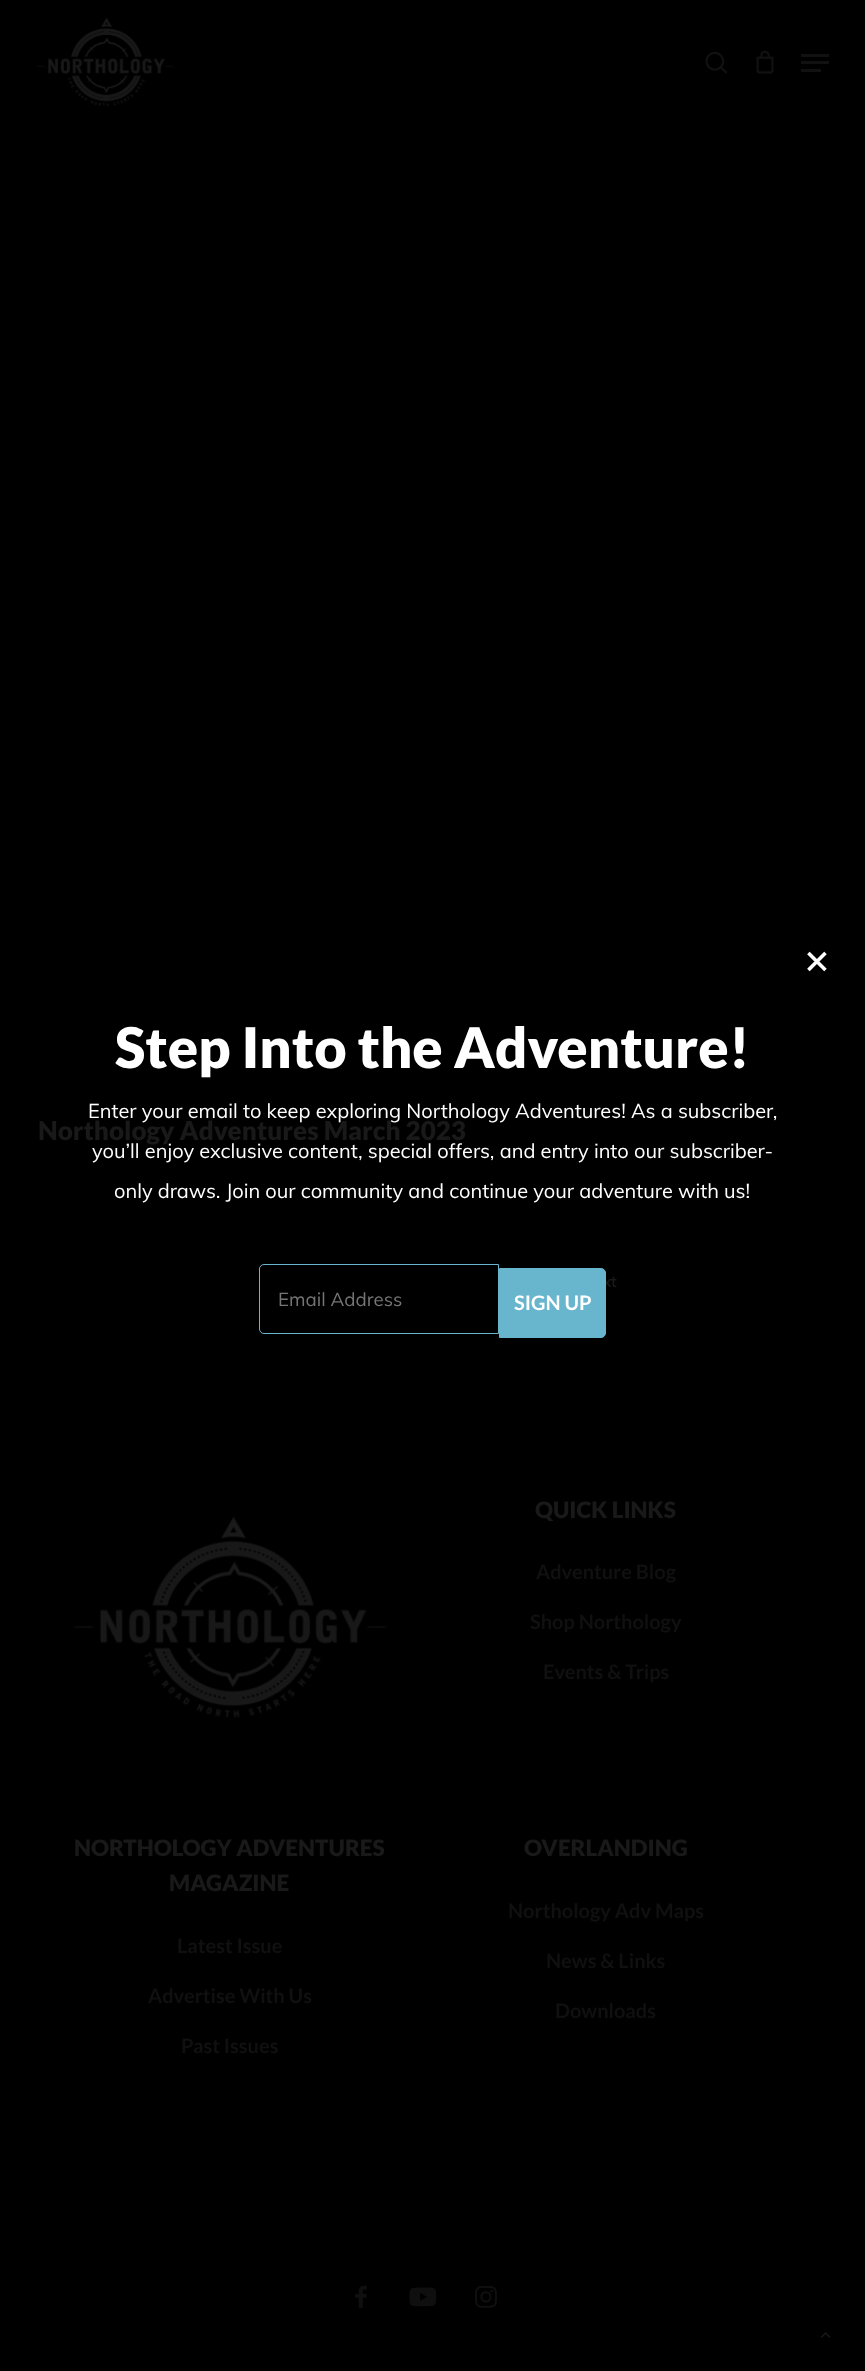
(async () => {
  const canvas = document.querySelector("canvas");
  canvas.width = 865;
  canvas.height = 2371;
  const ctx = canvas.getContext("2d");
  ctx.miterLimit = 4;
  ctx.fontKerning = "normal";
  async function loadImage(src) {
    const img = new Image();
    img.src = src;
    await img.decode();
    return img;
  }

  ctx.fillStyle = "#000000";
  ctx.fillRect(0, 0, 865, 2371);
  ctx.beginPath();
  ctx.roundRect(259.5, 1264.5, 239, 69, [4.5, 0, 0, 4.5]);
  ctx.strokeStyle = "#68b5ce";
  ctx.stroke();
  ctx.drawImage(await loadImage("img/1.png"), 36, 17, 138, 90);
  ctx.drawImage(await loadImage("img/2.png"), 705, 51, 22, 23);
  ctx.drawImage(await loadImage("img/3.png"), 756, 50, 18, 24);
  for (const [x, y, w, h, color] of [
    [801, 54, 28, 3, "#111111"],
    [801, 69, 20, 3, "#111111"],
    [801, 61, 28, 3, "#111111"],
  ]) {
    ctx.fillStyle = color;
    ctx.fillRect(x, y, w, h);
  }
  ctx.drawImage(await loadImage("img/4.png"), 73, 1516, 314, 202);
  ctx.drawImage(await loadImage("img/5.png"), 355, 2285, 12, 24);
  ctx.drawImage(await loadImage("img/6.png"), 409, 2287, 28, 20);
  ctx.drawImage(await loadImage("img/7.png"), 475, 2285, 22, 23);
  ctx.drawImage(await loadImage("img/8.png"), 821, 2332, 10, 6);
  ctx.font = "bold 38px Muli";
  ctx.fillStyle = "#ffffff";
  ctx.fillText("×", 805, 973);
  ctx.font = "900 56px Lato";
  ctx.fillText("Step Into the Adventure!", 115, 1068);
  ctx.font = "20px Muli";
  for (const [text, x, y] of [
    ["Enter your email to keep exploring Northology Adventures! As a subscriber,", 88, 1118],
    ["you’ll enjoy exclusive content, special offers, and entry into our subscriber-", 92, 1158],
    ["only draws. Join our community and continue your adventure with us!", 114, 1198],
  ]) {
    ctx.fillText(text, x, y);
  }
  ctx.font = "18.75px Muli";
  ctx.fillStyle = "#757575";
  ctx.fillText("Email Address", 278, 1306);
  ctx.font = "900 26px Lato";
  ctx.fillStyle = "#191919";
  ctx.fillText("Northology Adventures March 2023", 38, 1140);
  ctx.font = "bold 15px Muli";
  ctx.fillText("xt", 603, 1287);
  ctx.fillStyle = "#68b5ce";
  ctx.beginPath();
  ctx.roundRect(499.5, 1268.5, 106, 69, [0, 4.5, 4.5, 0]);
  ctx.fill();
  ctx.stroke();
  ctx.font = "bold 20px Lato";
  ctx.fillStyle = "#ffffff";
  ctx.fillText("SIGN UP", 514, 1310);
  ctx.font = "900 22.5px Lato";
  ctx.fillStyle = "#191919";
  ctx.fillText("QUICK LINKS", 535, 1518);
  ctx.font = "bold 20px Lato";
  ctx.fillStyle = "#101010";
  for (const [text, x, y] of [
    ["Adventure Blog", 536, 1579],
    ["Shop Northology", 530, 1629],
    ["Events & Trips", 543, 1679],
  ]) {
    ctx.fillText(text, x, y);
  }
  ctx.font = "900 22.5px Lato";
  ctx.fillStyle = "#191919";
  ctx.fillText("NORTHOLOGY ADVENTURES", 74, 1856);
  ctx.fillText("MAGAZINE", 169, 1891);
  ctx.font = "bold 20px Lato";
  ctx.fillStyle = "#101010";
  for (const [text, x, y] of [
    ["Latest Issue", 177, 1953],
    ["Advertise With Us", 148, 2003],
    ["Past Issues", 181, 2053],
  ]) {
    ctx.fillText(text, x, y);
  }
  ctx.font = "900 22.5px Lato";
  ctx.fillStyle = "#191919";
  ctx.fillText("OVERLANDING", 524, 1856);
  ctx.font = "bold 20px Lato";
  ctx.fillStyle = "#101010";
  for (const [text, x, y] of [
    ["Northology Adv Maps", 508, 1918],
    ["News & Links", 546, 1968],
    ["Downloads", 555, 2018],
  ]) {
    ctx.fillText(text, x, y);
  }
})();
